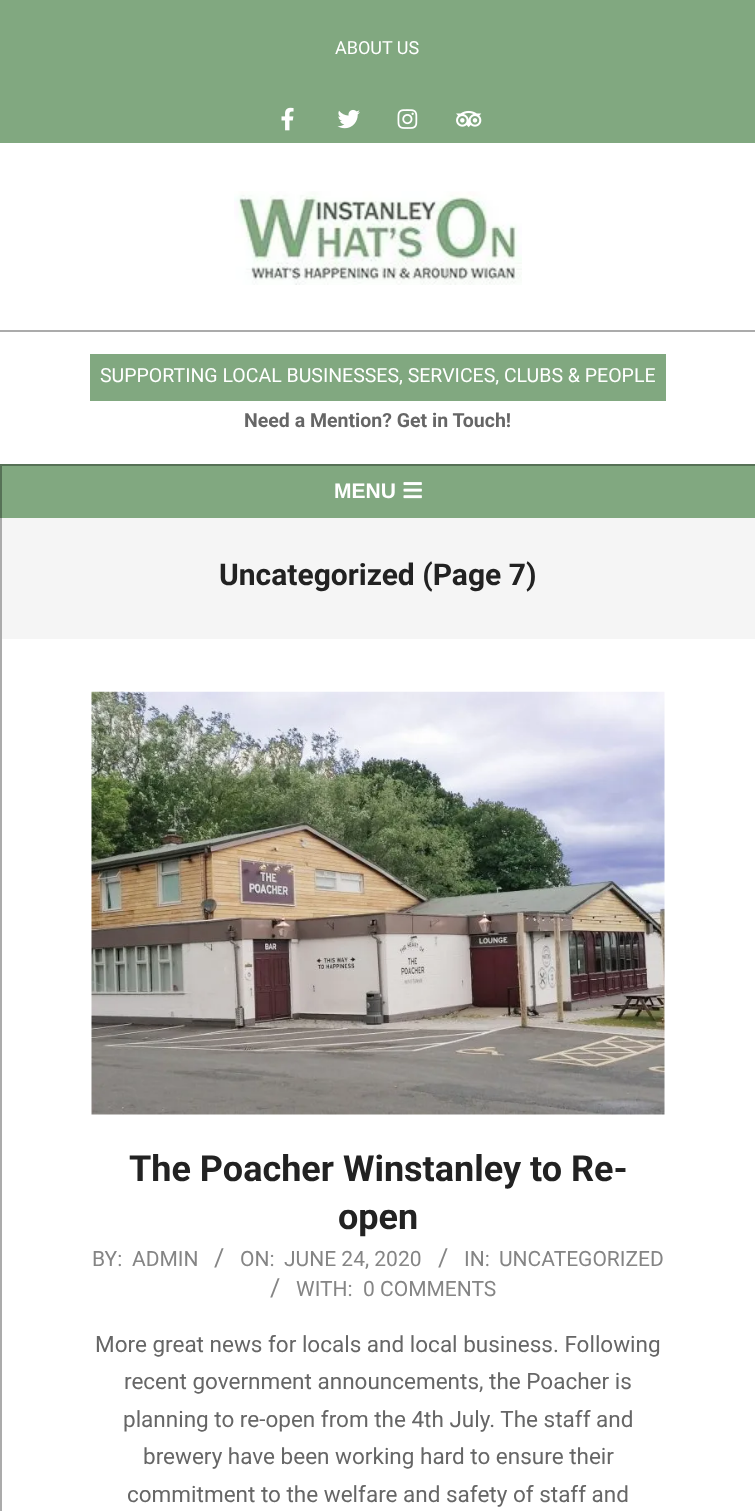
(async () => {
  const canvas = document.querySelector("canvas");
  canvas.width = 755;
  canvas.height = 1511;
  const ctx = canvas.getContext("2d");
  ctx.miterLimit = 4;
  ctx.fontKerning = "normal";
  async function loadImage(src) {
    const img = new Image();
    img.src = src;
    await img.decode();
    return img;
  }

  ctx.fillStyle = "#ffffff";
  ctx.fillRect(0, 0, 755, 1511);
  ctx.fillStyle = "#81a880";
  ctx.fillRect(0, 0, 755, 143);
  ctx.drawImage(await loadImage("img/1.png"), 281, 107, 13, 24);
  ctx.drawImage(await loadImage("img/2.png"), 337, 109, 23, 20);
  ctx.drawImage(await loadImage("img/3.png"), 397, 109, 21, 20);
  ctx.drawImage(await loadImage("img/4.png"), 456, 110, 26, 18);
  ctx.drawImage(await loadImage("img/5.png"), 234, 191, 288, 94);
  for (const [x, y, w, h, color] of [
    [0, 330, 755, 2, "#ababab"],
    [90, 354, 576, 47, "#81a880"],
    [2, 466, 753, 52, "#81a880"],
    [0, 464, 2, 54, "#567156"],
    [2, 464, 753, 2, "#567156"],
  ]) {
    ctx.fillStyle = color;
    ctx.fillRect(x, y, w, h);
  }
  ctx.drawImage(await loadImage("img/6.png"), 403, 482, 19, 17);
  ctx.fillStyle = "#ababab";
  ctx.fillRect(0, 518, 2, 993);
  ctx.fillStyle = "#f5f5f5";
  ctx.fillRect(2, 518, 753, 121);
  ctx.drawImage(await loadImage("img/7.png"), 91, 691, 574, 424);
  ctx.font = "18px Roboto";
  ctx.fillStyle = "#ffffff";
  ctx.fillText("ABOUT US", 335, 54);
  ctx.font = "19.5px Roboto";
  ctx.fillText("SUPPORTING LOCAL BUSINESSES, SERVICES, CLUBS & PEOPLE", 100, 382);
  ctx.font = "bold 19.5px Roboto";
  ctx.fillStyle = "#666666";
  ctx.fillText("Need a Mention? Get in Touch!", 244, 427);
  ctx.font = "bold 21px Liberation Sans";
  ctx.fillStyle = "#ffffff";
  ctx.fillText("MENU", 334, 498);
  ctx.font = "bold 30px Roboto";
  ctx.fillStyle = "#222222";
  ctx.fillText("Uncategorized (Page 7)", 219, 585);
  ctx.font = "bold 36px Roboto";
  ctx.fillText("The Poacher Winstanley to Re-", 129, 1181);
  ctx.fillText("open", 338, 1229);
  ctx.font = "21px Roboto";
  ctx.fillStyle = "#858585";
  ctx.fillText("BY:", 92, 1266);
  ctx.fillText("ADMIN", 132, 1266);
  ctx.font = "25px Roboto";
  ctx.fillText("/", 214, 1266);
  ctx.font = "21px Roboto";
  ctx.fillText("ON:", 240, 1266);
  ctx.fillText("JUNE 24, 2020", 284, 1266);
  ctx.font = "25px Roboto";
  ctx.fillText("/", 438, 1266);
  ctx.font = "21px Roboto";
  ctx.fillText("IN:", 464, 1266);
  ctx.fillText("UNCATEGORIZED", 499, 1266);
  ctx.font = "25px Roboto";
  ctx.fillText("/", 270, 1296);
  ctx.font = "21px Roboto";
  ctx.fillText("WITH:", 296, 1296);
  ctx.fillText("0 COMMENTS", 363, 1296);
  ctx.font = "22.5px Roboto";
  ctx.fillStyle = "#666666";
  for (const [text, x, y] of [
    ["More great news for locals and local business. Following", 95, 1352],
    ["recent government announcements, the Poacher is", 124, 1389],
    ["planning to re-open from the 4th July. The staff and", 123, 1427],
    ["brewery have been working hard to ensure their", 143, 1464],
    ["commitment to the welfare and safety of staff and", 127, 1502],
  ]) {
    ctx.fillText(text, x, y);
  }
})();
